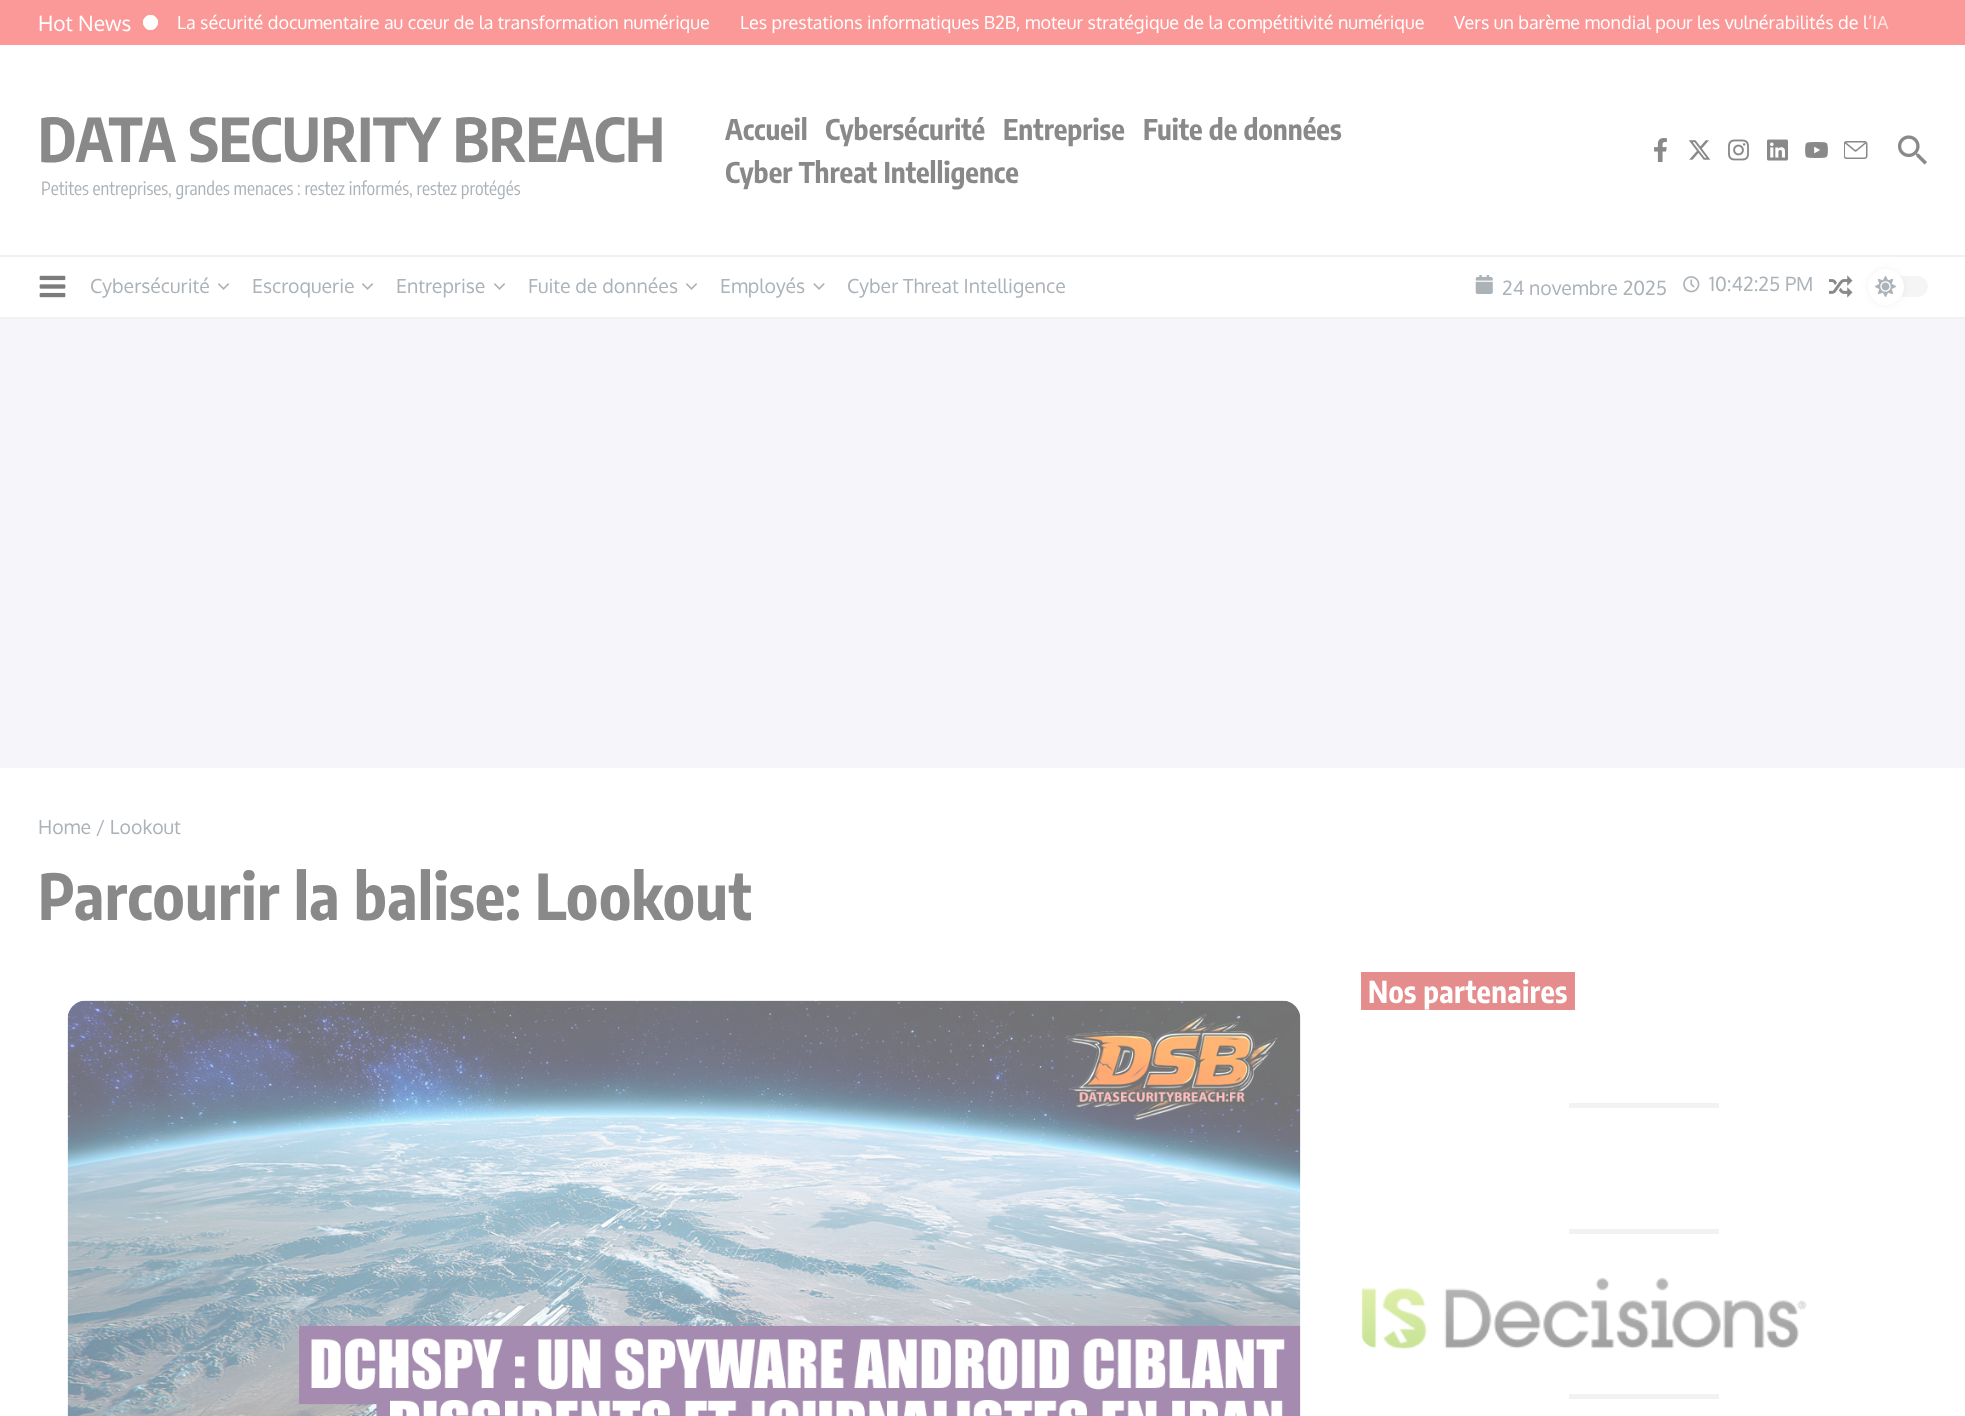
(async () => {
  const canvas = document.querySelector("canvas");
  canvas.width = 1965;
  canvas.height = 1416;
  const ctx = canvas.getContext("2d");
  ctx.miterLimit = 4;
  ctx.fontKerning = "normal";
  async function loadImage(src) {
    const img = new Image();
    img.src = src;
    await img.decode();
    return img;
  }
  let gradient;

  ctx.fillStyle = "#f6f6fa";
  ctx.fillRect(0, 0, 1965, 1416);
  ctx.fillStyle = "#fb9998";
  ctx.fillRect(0, 0, 1965, 45);
  ctx.fillStyle = "#ffffff";
  ctx.beginPath();
  ctx.arc(150.5, 22.5, 6.5, 0, Math.PI * 2);
  ctx.fill();
  ctx.strokeStyle = "#ffffff";
  ctx.lineWidth = 2;
  ctx.stroke();
  ctx.beginPath();
  ctx.arc(150.5, 22.5, 6.5, 0, Math.PI * 2);
  ctx.stroke();
  ctx.fillRect(0, 45, 1965, 210);
  ctx.fillStyle = "#f2f2f2";
  ctx.fillRect(0, 255, 1965, 2);
  ctx.drawImage(await loadImage("img/1.png"), 1654, 138, 13, 24);
  ctx.drawImage(await loadImage("img/2.png"), 1688, 140, 23, 20);
  ctx.drawImage(await loadImage("img/3.png"), 1728, 139, 21, 22);
  ctx.drawImage(await loadImage("img/4.png"), 1767, 139, 21, 22);
  ctx.drawImage(await loadImage("img/5.png"), 1805, 142, 23, 16);
  ctx.drawImage(await loadImage("img/6.png"), 1844, 141, 24, 18);
  ctx.drawImage(await loadImage("img/7.png"), 1898, 135, 29, 30);
  ctx.fillStyle = "#ffffff";
  ctx.fillRect(0, 257, 1965, 60);
  ctx.fillStyle = "#f2f2f2";
  ctx.fillRect(0, 317, 1965, 2);
  ctx.drawImage(await loadImage("img/8.png"), 39, 275, 27, 23);
  ctx.drawImage(await loadImage("img/9.png"), 218, 283, 12, 7);
  ctx.drawImage(await loadImage("img/9.png"), 362, 283, 12, 7);
  ctx.drawImage(await loadImage("img/9.png"), 494, 283, 12, 7);
  ctx.drawImage(await loadImage("img/9.png"), 686, 283, 12, 7);
  ctx.drawImage(await loadImage("img/10.png"), 813, 283, 12, 7);
  ctx.drawImage(await loadImage("img/11.png"), 1475, 275, 18, 19);
  ctx.drawImage(await loadImage("img/12.png"), 1683, 276, 17, 17);
  ctx.drawImage(await loadImage("img/13.png"), 1829, 275, 24, 23);
  ctx.fillStyle = "#f5f5f5";
  ctx.beginPath();
  ctx.roundRect(1868, 276, 60, 21, 10.5);
  ctx.fill();
  ctx.fillStyle = "rgba(115, 115, 115, 0.1)";
  ctx.filter = "blur(3px)";
  ctx.beginPath();
  ctx.roundRect(1868, 269, 36, 36, 18);
  ctx.fill();
  ctx.filter = "none";
  ctx.fillStyle = "#ffffff";
  ctx.beginPath();
  ctx.arc(1886, 287, 18, 0, Math.PI * 2);
  ctx.fill();
  ctx.drawImage(await loadImage("img/14.png"), 1875, 276, 21, 21);
  for (const [x, y, w, h, color] of [
    [0, 768, 1965, 648, "#ffffff"],
    [1361, 972, 214, 38, "#e58c8c"],
    [1569, 1103, 150, 5, "#f2f2f2"],
    [1569, 1229, 150, 5, "#f2f2f2"],
  ]) {
    ctx.fillStyle = color;
    ctx.fillRect(x, y, w, h);
  }
  ctx.drawImage(await loadImage("img/15.png"), 1361, 1278, 446, 71);
  ctx.fillRect(1569, 1394, 150, 5);
  ctx.drawImage(await loadImage("img/16.png"), 67, 1000, 1234, 416);
  ctx.font = "21px Oxygen";
  ctx.fillStyle = "#ffffff";
  ctx.fillText("Hot News", 38, 31);
  ctx.font = "18px Oxygen";
  for (const [text, x, y] of [
    ["La sécurité documentaire au cœur de la transformation numérique", 177, 29],
    ["Les prestations informatiques B2B, moteur stratégique de la compétitivité numérique", 740, 29],
    ["Vers un barème mondial pour les vulnérabilités de l’IA", 1454, 29],
  ]) {
    ctx.fillText(text, x, y);
  }
  gradient = ctx.createLinearGradient(1862, 23, 1937, 22);
  gradient.addColorStop(0, "rgba(251, 153, 152, 0)");
  gradient.addColorStop(1, "#fb9998");
  ctx.fillStyle = gradient;
  ctx.fillRect(1865, 15, 24, 14);
  ctx.font = "bold 60px Encode Sans Condensed";
  ctx.fillStyle = "#898989";
  ctx.fillText("DATA SECURITY BREACH", 38, 162);
  ctx.font = "18px Encode Sans Condensed";
  ctx.fillStyle = "#abb2b8";
  ctx.fillText("Petites entreprises, grandes menaces : restez informés, restez protégés", 41, 195);
  ctx.font = "bold 28.5px Encode Sans Condensed";
  ctx.fillStyle = "#898989";
  for (const [text, x, y] of [
    ["Accueil", 725, 140],
    ["Cybersécurité", 825, 140],
    ["Entreprise", 1003, 140],
    ["Fuite de données", 1143, 140],
    ["Cyber Threat Intelligence", 725, 183],
  ]) {
    ctx.fillText(text, x, y);
  }
  ctx.font = "19.5px Oxygen";
  ctx.fillStyle = "#abb2b8";
  for (const [text, x, y] of [
    ["Cybersécurité", 90, 293],
    ["Escroquerie", 252, 293],
    ["Entreprise", 396, 293],
    ["Fuite de données", 528, 293],
    ["Employés", 720, 293],
    ["Cyber Threat Intelligence", 847, 293],
    ["24 novembre 2025", 1502, 295],
    ["10:42:25 PM", 1709, 291],
    ["Home / Lookout", 38, 834],
  ]) {
    ctx.fillText(text, x, y);
  }
  ctx.letterSpacing = "0.3px";
  ctx.font = "bold 63px Encode Sans Condensed";
  ctx.fillStyle = "#898989";
  ctx.fillText("Parcourir la balise: Lookout", 38, 920);
  ctx.font = "bold 30px Encode Sans Condensed";
  ctx.fillStyle = "#ffffff";
  ctx.fillText("Nos partenaires", 1368, 1003);
})();
